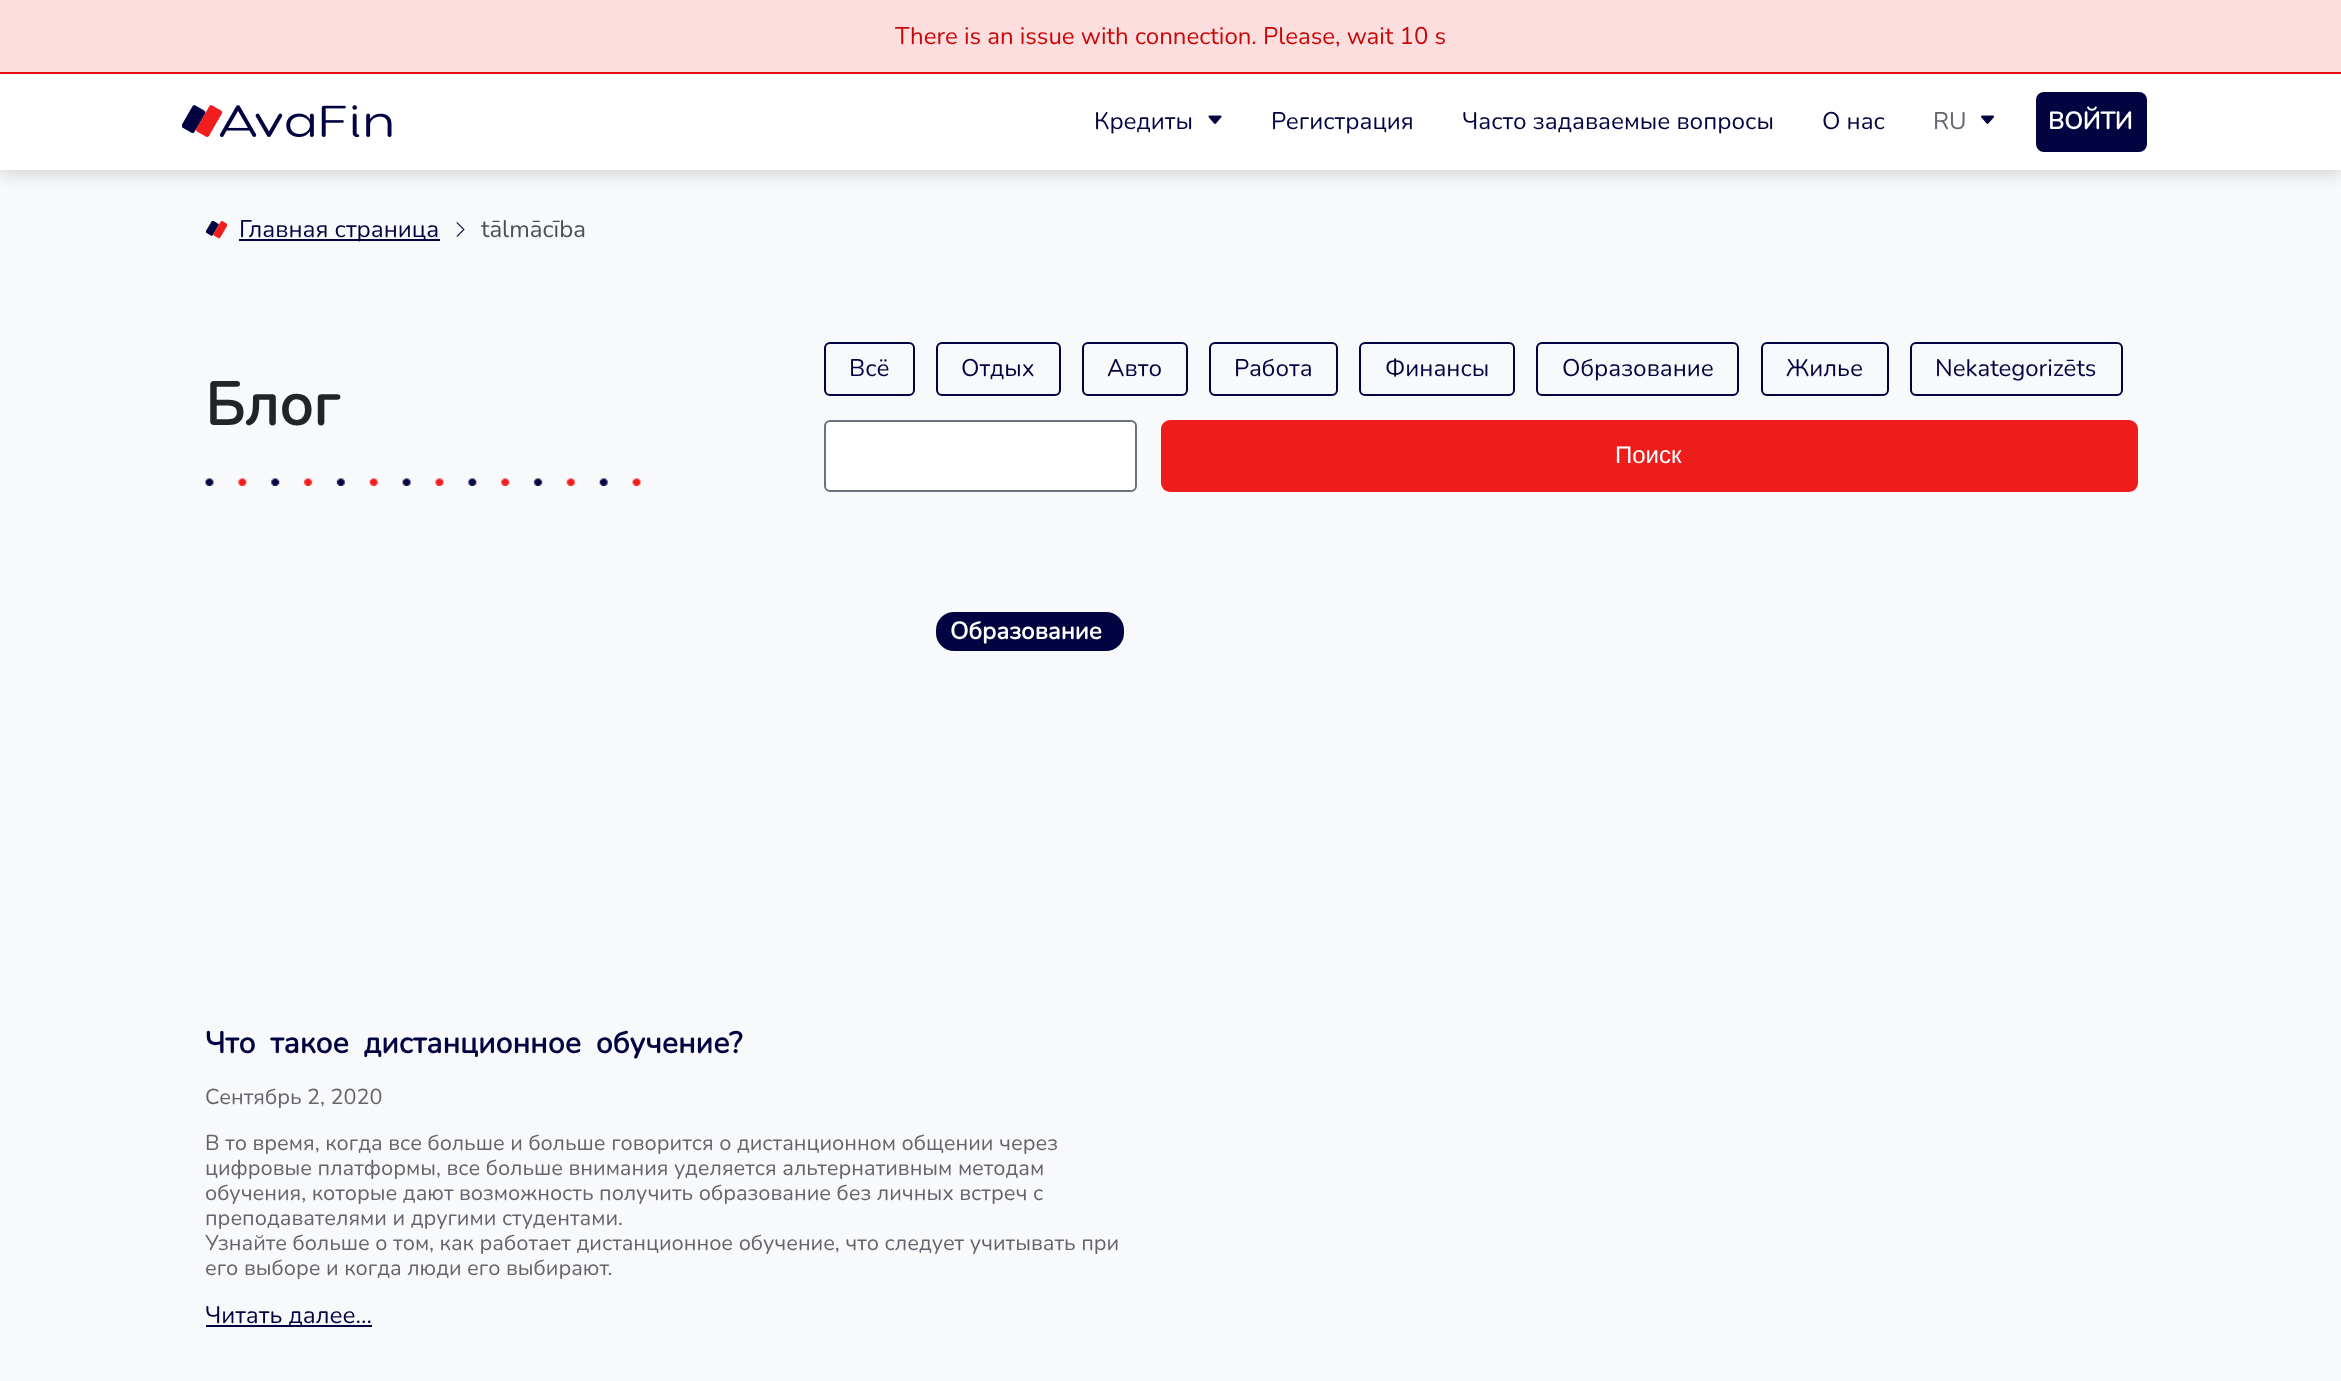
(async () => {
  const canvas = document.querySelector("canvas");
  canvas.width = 2341;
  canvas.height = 1381;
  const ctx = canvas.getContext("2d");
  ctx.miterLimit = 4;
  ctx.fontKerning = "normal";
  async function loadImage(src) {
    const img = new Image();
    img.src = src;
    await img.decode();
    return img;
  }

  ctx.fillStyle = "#f8f9fa";
  ctx.fillRect(0, 0, 2341, 1381);
  ctx.fillStyle = "rgba(0, 0, 0, 0.12)";
  ctx.filter = "blur(7.5px)";
  ctx.beginPath();
  ctx.rect(0, 6, 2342, 170);
  ctx.fill();
  ctx.filter = "none";
  for (const [x, y, w, h, color] of [
    [0, 74, 2341, 96, "#ffffff"],
    [0, 0, 2341, 72, "#fcdede"],
    [0, 72, 2341, 2, "#e50d0d"],
  ]) {
    ctx.fillStyle = color;
    ctx.fillRect(x, y, w, h);
  }
  ctx.drawImage(await loadImage("img/1.png"), 182, 105, 210, 32);
  ctx.drawImage(await loadImage("img/2.png"), 1208, 115, 14, 9);
  ctx.drawImage(await loadImage("img/3.png"), 1981, 115, 13, 9);
  ctx.fillStyle = "#010440";
  ctx.beginPath();
  ctx.roundRect(2036, 92, 111, 60, 8);
  ctx.fill();
  ctx.drawImage(await loadImage("img/4.png"), 206, 221, 21, 18);
  ctx.fillRect(239, 239, 201, 2);
  ctx.drawImage(await loadImage("img/5.png"), 456, 222, 9, 15);
  ctx.drawImage(await loadImage("img/6.png"), 205, 478, 436, 8);
  ctx.beginPath();
  ctx.roundRect(825, 343, 89, 52, 5);
  ctx.strokeStyle = "#010440";
  ctx.lineWidth = 2;
  ctx.stroke();
  ctx.beginPath();
  ctx.roundRect(937, 343, 123, 52, 5);
  ctx.stroke();
  ctx.beginPath();
  ctx.roundRect(1083, 343, 104, 52, 5);
  ctx.stroke();
  ctx.beginPath();
  ctx.roundRect(1210, 343, 127, 52, 5);
  ctx.stroke();
  ctx.beginPath();
  ctx.roundRect(1360, 343, 154, 52, 5);
  ctx.stroke();
  ctx.beginPath();
  ctx.roundRect(1537, 343, 201, 52, 5);
  ctx.stroke();
  ctx.beginPath();
  ctx.roundRect(1762, 343, 126, 52, 5);
  ctx.stroke();
  ctx.beginPath();
  ctx.roundRect(1911, 343, 211, 52, 5);
  ctx.stroke();
  ctx.fillStyle = "#ffffff";
  ctx.beginPath();
  ctx.roundRect(825, 421, 311, 70, 5);
  ctx.fill();
  ctx.strokeStyle = "#6a737c";
  ctx.stroke();
  ctx.fillStyle = "#ef1c1c";
  ctx.beginPath();
  ctx.roundRect(1161, 420, 977, 72, 9);
  ctx.fill();
  ctx.fillStyle = "#010440";
  ctx.beginPath();
  ctx.roundRect(936, 612, 188, 39, 18);
  ctx.fill();
  ctx.fillRect(206, 1325, 166, 2);
  ctx.font = "24px Nunito";
  ctx.fillStyle = "#ca0707";
  ctx.fillText("There is an issue with connection. Please, wait 10 s", 895, 44);
  ctx.fillStyle = "#010440";
  for (const [text, x, y] of [
    ["Кредиты", 1094, 129],
    ["Регистрация", 1271, 129],
    ["Часто задаваемые вопросы", 1462, 129],
    ["О нас", 1822, 129],
  ]) {
    ctx.fillText(text, x, y);
  }
  ctx.fillStyle = "#666370";
  ctx.fillText("RU", 1933, 129);
  ctx.font = "bold 24px Nunito";
  ctx.fillStyle = "#ffffff";
  ctx.fillText("ВОЙТИ", 2048, 129);
  ctx.font = "24px Nunito";
  ctx.fillStyle = "#010440";
  ctx.fillText("Главная страница", 239, 237);
  ctx.fillStyle = "#495057";
  ctx.fillText("tālmācība", 481, 237);
  ctx.font = "bold 60px Nunito";
  ctx.fillStyle = "#212529";
  ctx.fillText("Блог", 205, 425);
  ctx.font = "24px Nunito";
  ctx.fillStyle = "#010440";
  for (const [text, x, y] of [
    ["Всё", 849, 376],
    ["Отдых", 961, 376],
    ["Авто", 1107, 376],
    ["Работа", 1234, 376],
    ["Финансы", 1385, 376],
    ["Образование", 1562, 376],
    ["Жилье", 1786, 376],
    ["Nekategorizēts", 1935, 376],
  ]) {
    ctx.fillText(text, x, y);
  }
  ctx.font = "24px Liberation Sans";
  ctx.fillStyle = "#ffffff";
  ctx.fillText("Поиск", 1615, 463);
  ctx.font = "bold 24px Nunito";
  ctx.fillText("Образование", 950, 639);
  ctx.wordSpacing = "7px";
  ctx.font = "bold 30px Nunito";
  ctx.fillStyle = "#010440";
  ctx.fillText("Что такое дистанционное обучение?", 205, 1053);
  ctx.wordSpacing = "0px";
  ctx.font = "21.6px Nunito";
  ctx.fillStyle = "#666370";
  for (const [text, x, y] of [
    ["Сентябрь 2, 2020", 205, 1104],
    ["В то время, когда все больше и больше говорится о дистанционном общении через", 205, 1150],
    ["цифровые платформы, все больше внимания уделяется альтернативным методам", 205, 1175],
    ["обучения, которые дают возможность получить образование без личных встреч с", 205, 1200],
    ["преподавателями и другими студентами.", 205, 1225],
    ["Узнайте больше о том, как работает дистанционное обучение, что следует учитывать при", 205, 1250],
    ["его выборе и когда люди его выбирают.", 205, 1275],
  ]) {
    ctx.fillText(text, x, y);
  }
  ctx.font = "24px Nunito";
  ctx.fillStyle = "#010440";
  ctx.fillText("Читать далее...", 205, 1323);
})();
